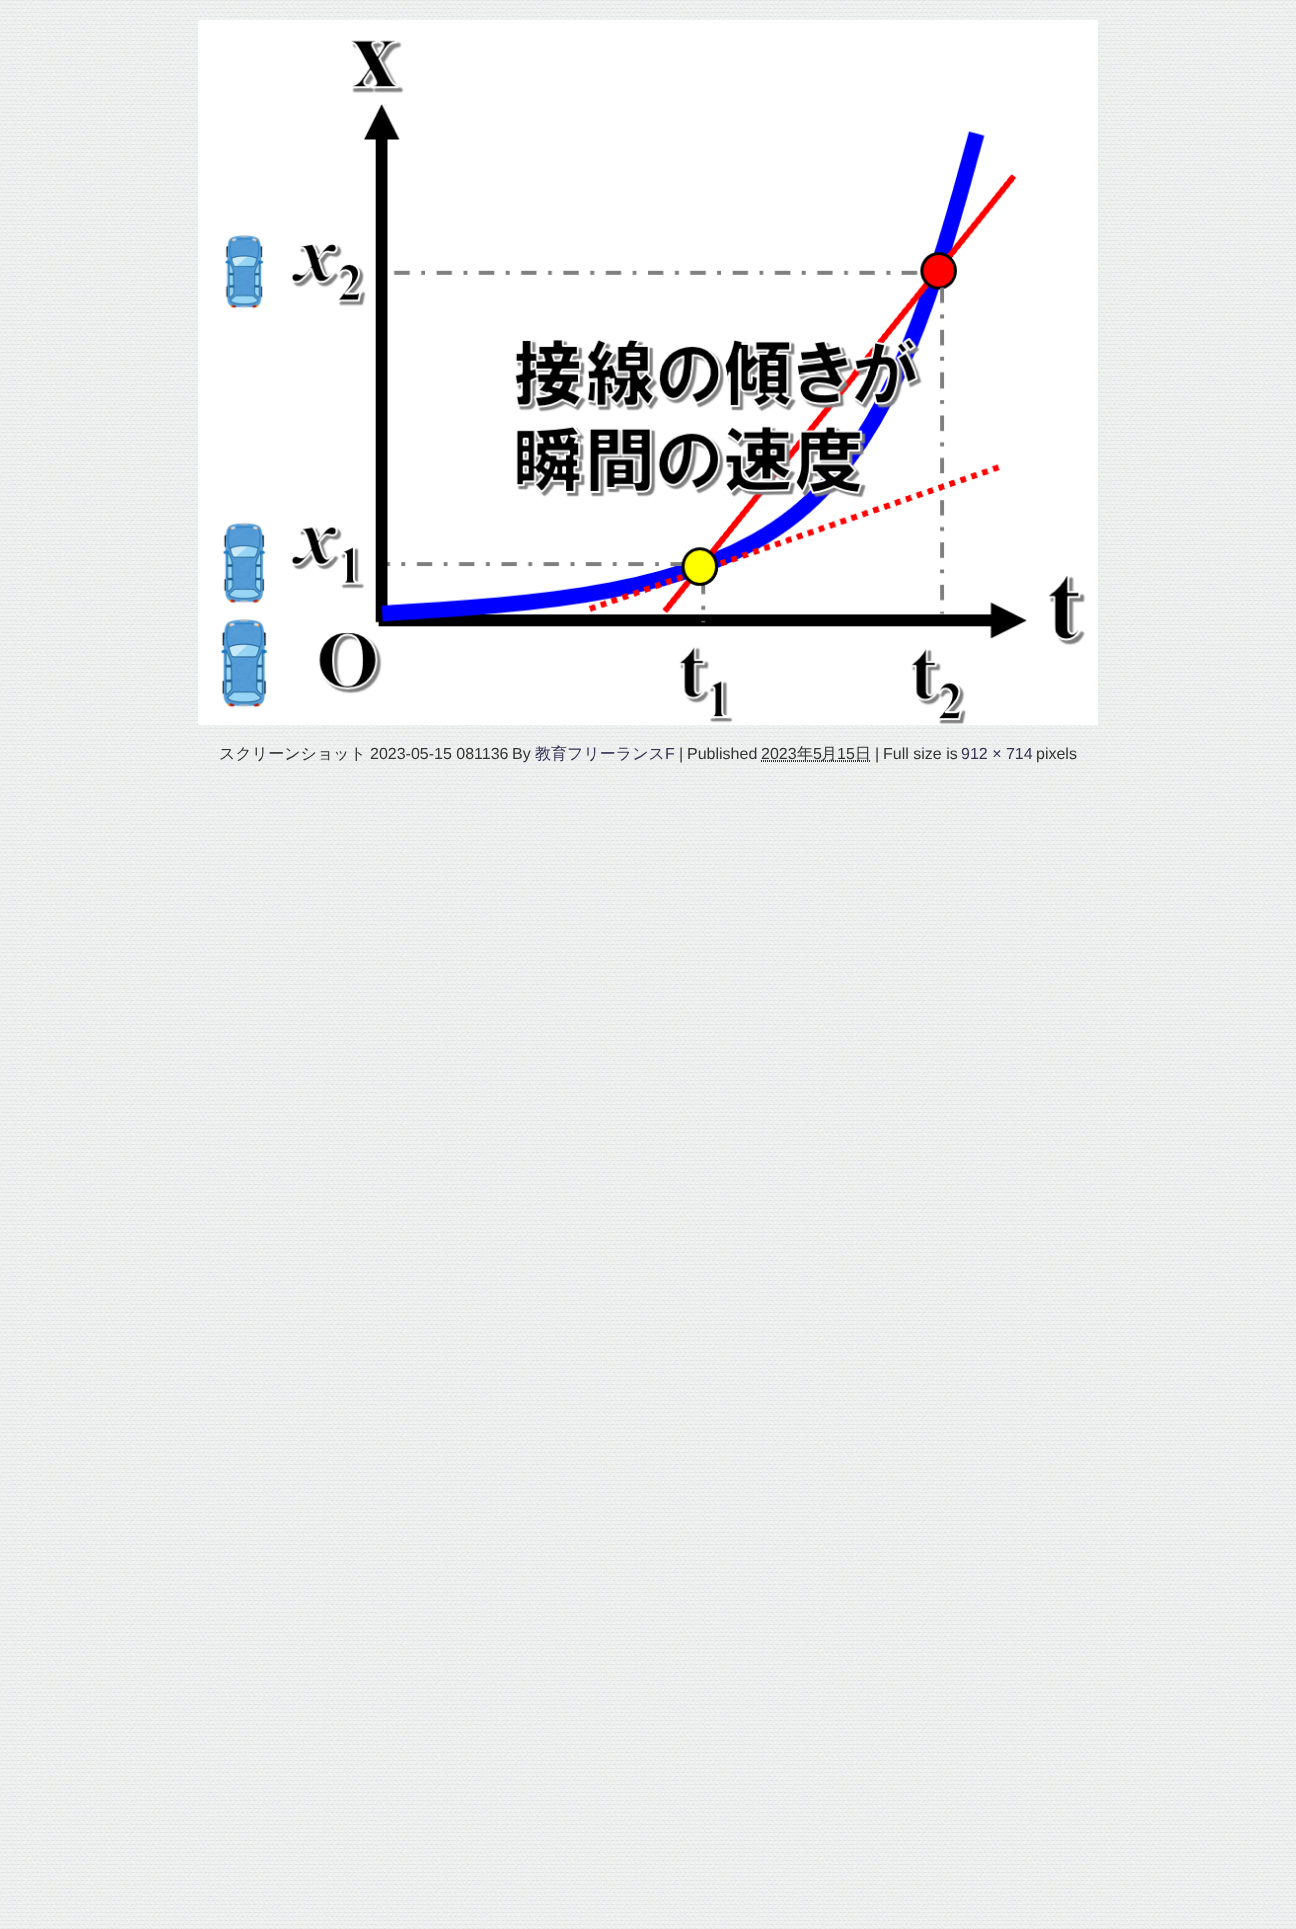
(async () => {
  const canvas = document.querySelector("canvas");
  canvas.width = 1296;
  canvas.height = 1929;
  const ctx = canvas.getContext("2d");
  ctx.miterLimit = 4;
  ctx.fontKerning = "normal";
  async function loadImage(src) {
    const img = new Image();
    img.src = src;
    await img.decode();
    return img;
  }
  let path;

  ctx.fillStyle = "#ffffff";
  ctx.fillRect(0, 0, 1296, 1929);
  ctx.drawImage(await loadImage("img/1.png"), 0, 0, 1296, 1929);
  ctx.drawImage(await loadImage("img/2.png"), 198, 20, 900, 705);
  path = new Path2D("M761 761.5H871");
  ctx.strokeStyle = "#333333";
  ctx.setLineDash([1, 1]);
  ctx.stroke(path);
  path = new Path2D("M761 760.5H871");
  ctx.stroke(path);
  ctx.font = "500 16px WenQuanYi Zen Hei";
  ctx.fillStyle = "#333333";
  ctx.fillText("スクリーンショット", 219, 759);
  ctx.font = "16px Liberation Sans";
  ctx.fillText("2023-05-15 081136", 370, 759);
  ctx.fillText("By", 512, 759);
  ctx.font = "500 16px WenQuanYi Zen Hei";
  ctx.fillStyle = "#333355";
  ctx.fillText("教育フリーランス", 535, 759);
  ctx.font = "16px Liberation Sans";
  ctx.fillText("F", 665, 759);
  ctx.fillStyle = "#333333";
  for (const [text, x, y] of [
    ["|", 679, 759],
    ["Published", 687, 759],
    ["2023", 761, 759],
  ]) {
    ctx.fillText(text, x, y);
  }
  ctx.font = "500 16px WenQuanYi Zen Hei";
  ctx.fillText("年", 797, 759);
  ctx.font = "16px Liberation Sans";
  ctx.fillText("5", 813, 759);
  ctx.font = "500 16px WenQuanYi Zen Hei";
  ctx.fillText("月", 821, 759);
  ctx.font = "16px Liberation Sans";
  ctx.fillText("15", 837, 759);
  ctx.font = "500 16px WenQuanYi Zen Hei";
  ctx.fillText("日", 855, 759);
  ctx.font = "16px Liberation Sans";
  ctx.fillText("|", 875, 759);
  ctx.fillText("Full size is", 883, 759);
  ctx.fillStyle = "#333355";
  ctx.fillText("912 × 714", 961, 759);
  ctx.fillStyle = "#333333";
  ctx.fillText("pixels", 1036, 759);
})();
